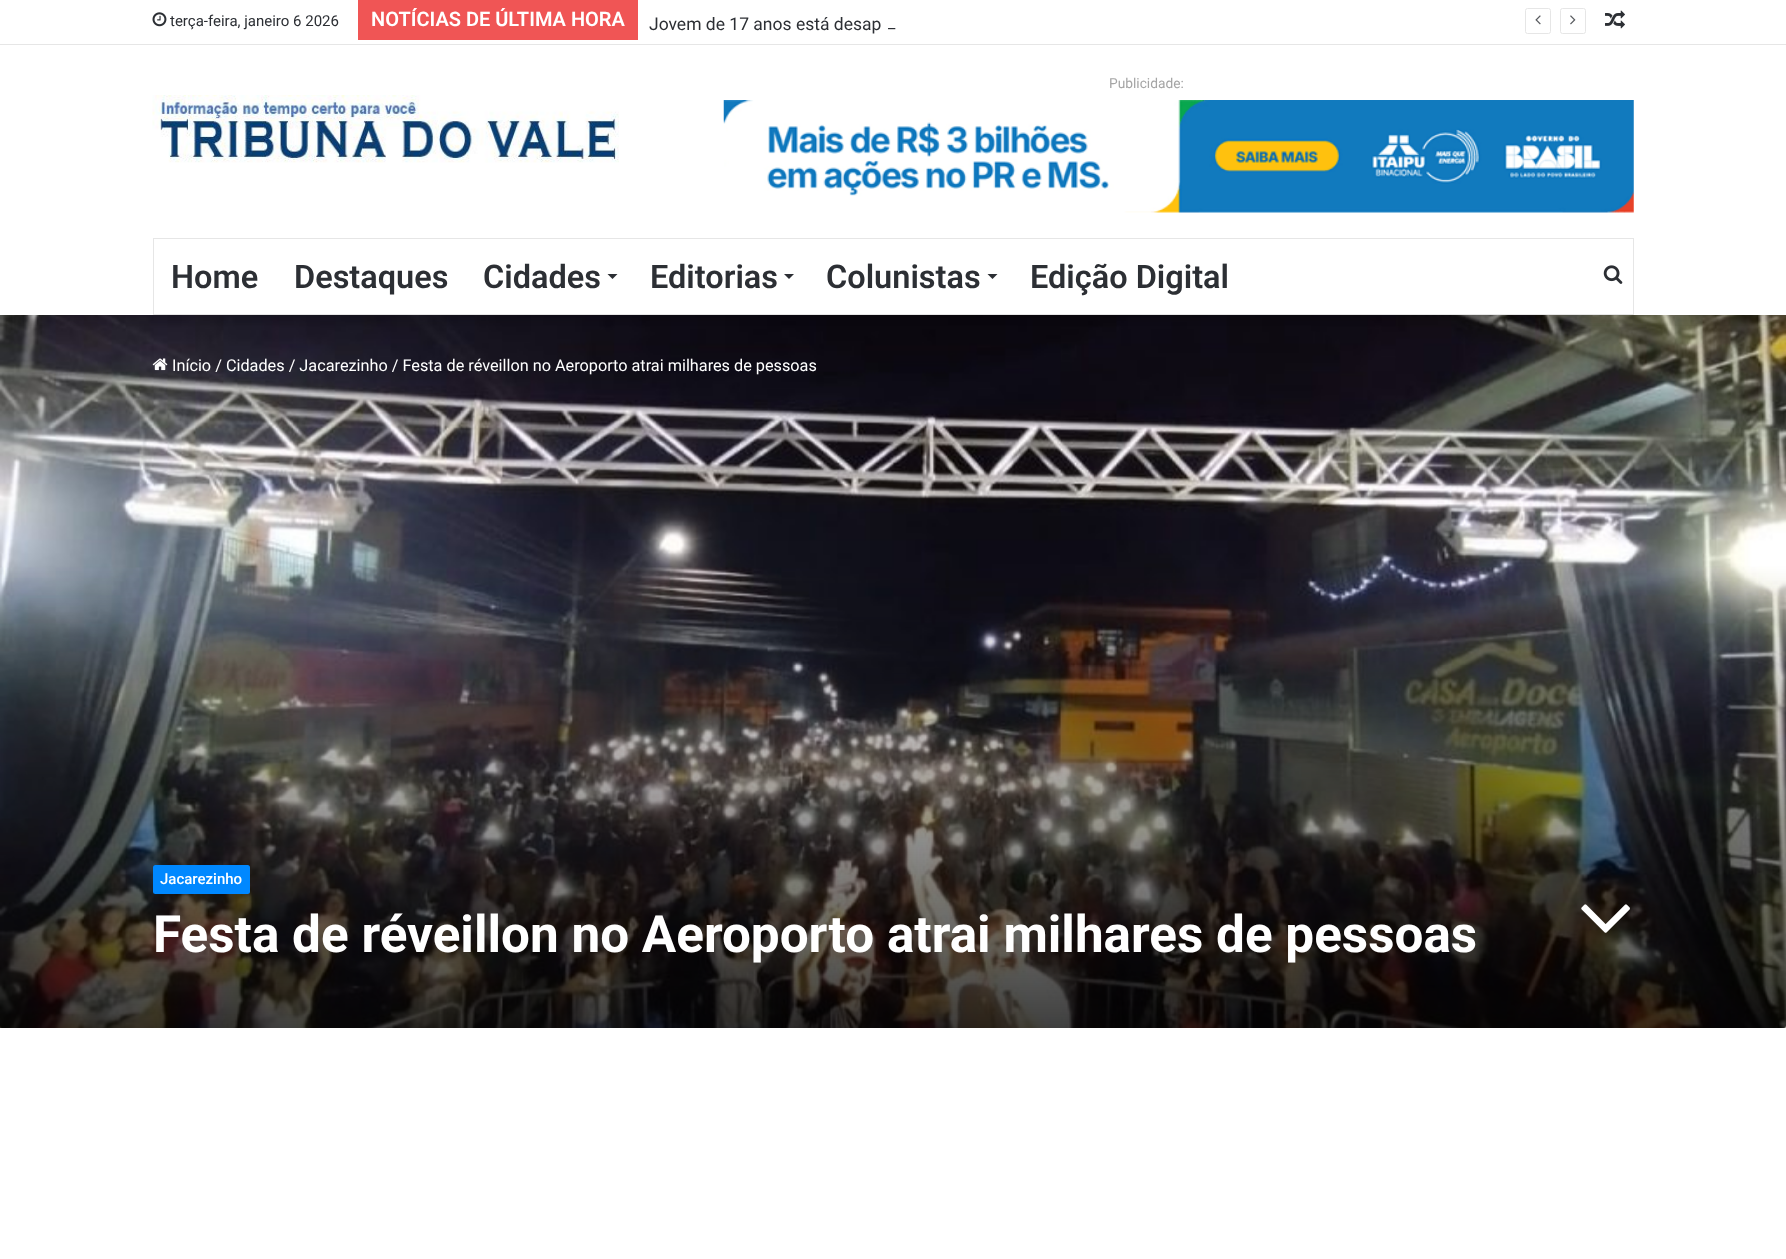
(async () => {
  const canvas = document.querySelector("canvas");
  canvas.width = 1786;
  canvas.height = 1259;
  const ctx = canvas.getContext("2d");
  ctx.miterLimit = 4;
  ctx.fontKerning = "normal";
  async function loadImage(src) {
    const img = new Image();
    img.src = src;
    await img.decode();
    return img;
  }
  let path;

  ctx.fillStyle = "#ffffff";
  ctx.fillRect(0, 0, 1786, 1259);
  ctx.drawImage(await loadImage("img/8.png"), 0, 315, 1786, 713);
  ctx.save();
  ctx.beginPath();
  ctx.rect(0, 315, 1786, 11);
  ctx.clip();
  ctx.fillStyle = "rgba(0, 0, 0, 0.1)";
  ctx.filter = "blur(6px)";
  ctx.beginPath();
  ctx.rect(-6, -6, 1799, 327);
  ctx.fill();
  ctx.filter = "none";
  ctx.restore();
  ctx.fillStyle = "#e6e6e6";
  ctx.fillRect(0, 44, 1786, 1);
  ctx.drawImage(await loadImage("img/1.png"), 152, 12, 15, 15);
  ctx.fillStyle = "#f05555";
  ctx.fillRect(358, 0, 280, 40);
  ctx.beginPath();
  ctx.roundRect(1525.5, 8.5, 25, 25, 2);
  ctx.strokeStyle = "#e6e6e6";
  ctx.stroke();
  ctx.drawImage(await loadImage("img/2.png"), 1535, 15, 6, 10);
  ctx.beginPath();
  ctx.roundRect(1560.5, 8.5, 25, 25, 2);
  ctx.stroke();
  ctx.drawImage(await loadImage("img/3.png"), 1570, 15, 6, 10);
  ctx.drawImage(await loadImage("img/4.png"), 1605, 10, 20, 19);
  ctx.drawImage(await loadImage("img/5.png"), 723, 100, 911, 113);
  ctx.drawImage(await loadImage("img/6.png"), 152, 95, 467, 68);
  ctx.strokeRect(153.5, 238.5, 1480, 76);
  ctx.fillStyle = "#2c2f34";
  path = new Path2D("M607.5 274H617.5L612.5 279Z");
  ctx.fill(path);
  path = new Path2D("M784 274H794L789 279Z");
  ctx.fill(path);
  path = new Path2D("M987.5 274H997.5L992.5 279Z");
  ctx.fill(path);
  ctx.drawImage(await loadImage("img/7.png"), 1603, 265, 20, 19);
  ctx.drawImage(await loadImage("img/9.png"), 152, 358, 16, 13);
  ctx.fillStyle = "#0088ff";
  ctx.beginPath();
  ctx.roundRect(153, 865, 97, 29, 2.5);
  ctx.fill();
  ctx.drawImage(await loadImage("img/10.png"), 1581, 904, 49, 29);
  ctx.font = "15px Roboto";
  ctx.fillStyle = "#2c2f34";
  ctx.fillText("terça-feira, janeiro 6 2026", 170, 26);
  ctx.font = "600 20px Roboto";
  ctx.fillStyle = "#ffffff";
  ctx.fillText("NOTÍCIAS DE ÚLTIMA HORA", 371, 26);
  ctx.font = "17.5px Roboto";
  ctx.fillStyle = "#2c2f34";
  ctx.fillText("Jovem de 17 anos está desap", 649, 30);
  ctx.font = "16.25px Roboto";
  ctx.fillText("_", 888, 28);
  ctx.font = "13.75px Roboto";
  ctx.fillStyle = "#a5a5a5";
  ctx.fillText("Publicidade:", 1109, 88);
  ctx.font = "600 32.5px Roboto";
  ctx.fillStyle = "#2c2f34";
  for (const [text, x, y] of [
    ["Home", 171, 288],
    ["Destaques", 294, 288],
    ["Cidades", 483, 288],
    ["Editorias", 650, 288],
    ["Colunistas", 826, 288],
    ["Edição Digital", 1030, 288],
  ]) {
    ctx.fillText(text, x, y);
  }
  ctx.font = "16.25px Roboto";
  ctx.fillStyle = "#ffffff";
  ctx.fillText("Início / Cidades / Jacarezinho / Festa de réveillon no Aeroporto atrai milhares de pessoas", 172, 371);
  ctx.font = "500 15px Roboto";
  ctx.fillText("Jacarezinho", 160, 884);
  ctx.font = "bold 51.25px Roboto";
  ctx.fillText("Festa de réveillon no Aeroporto atrai milhares de pessoas", 153, 952);
})();
